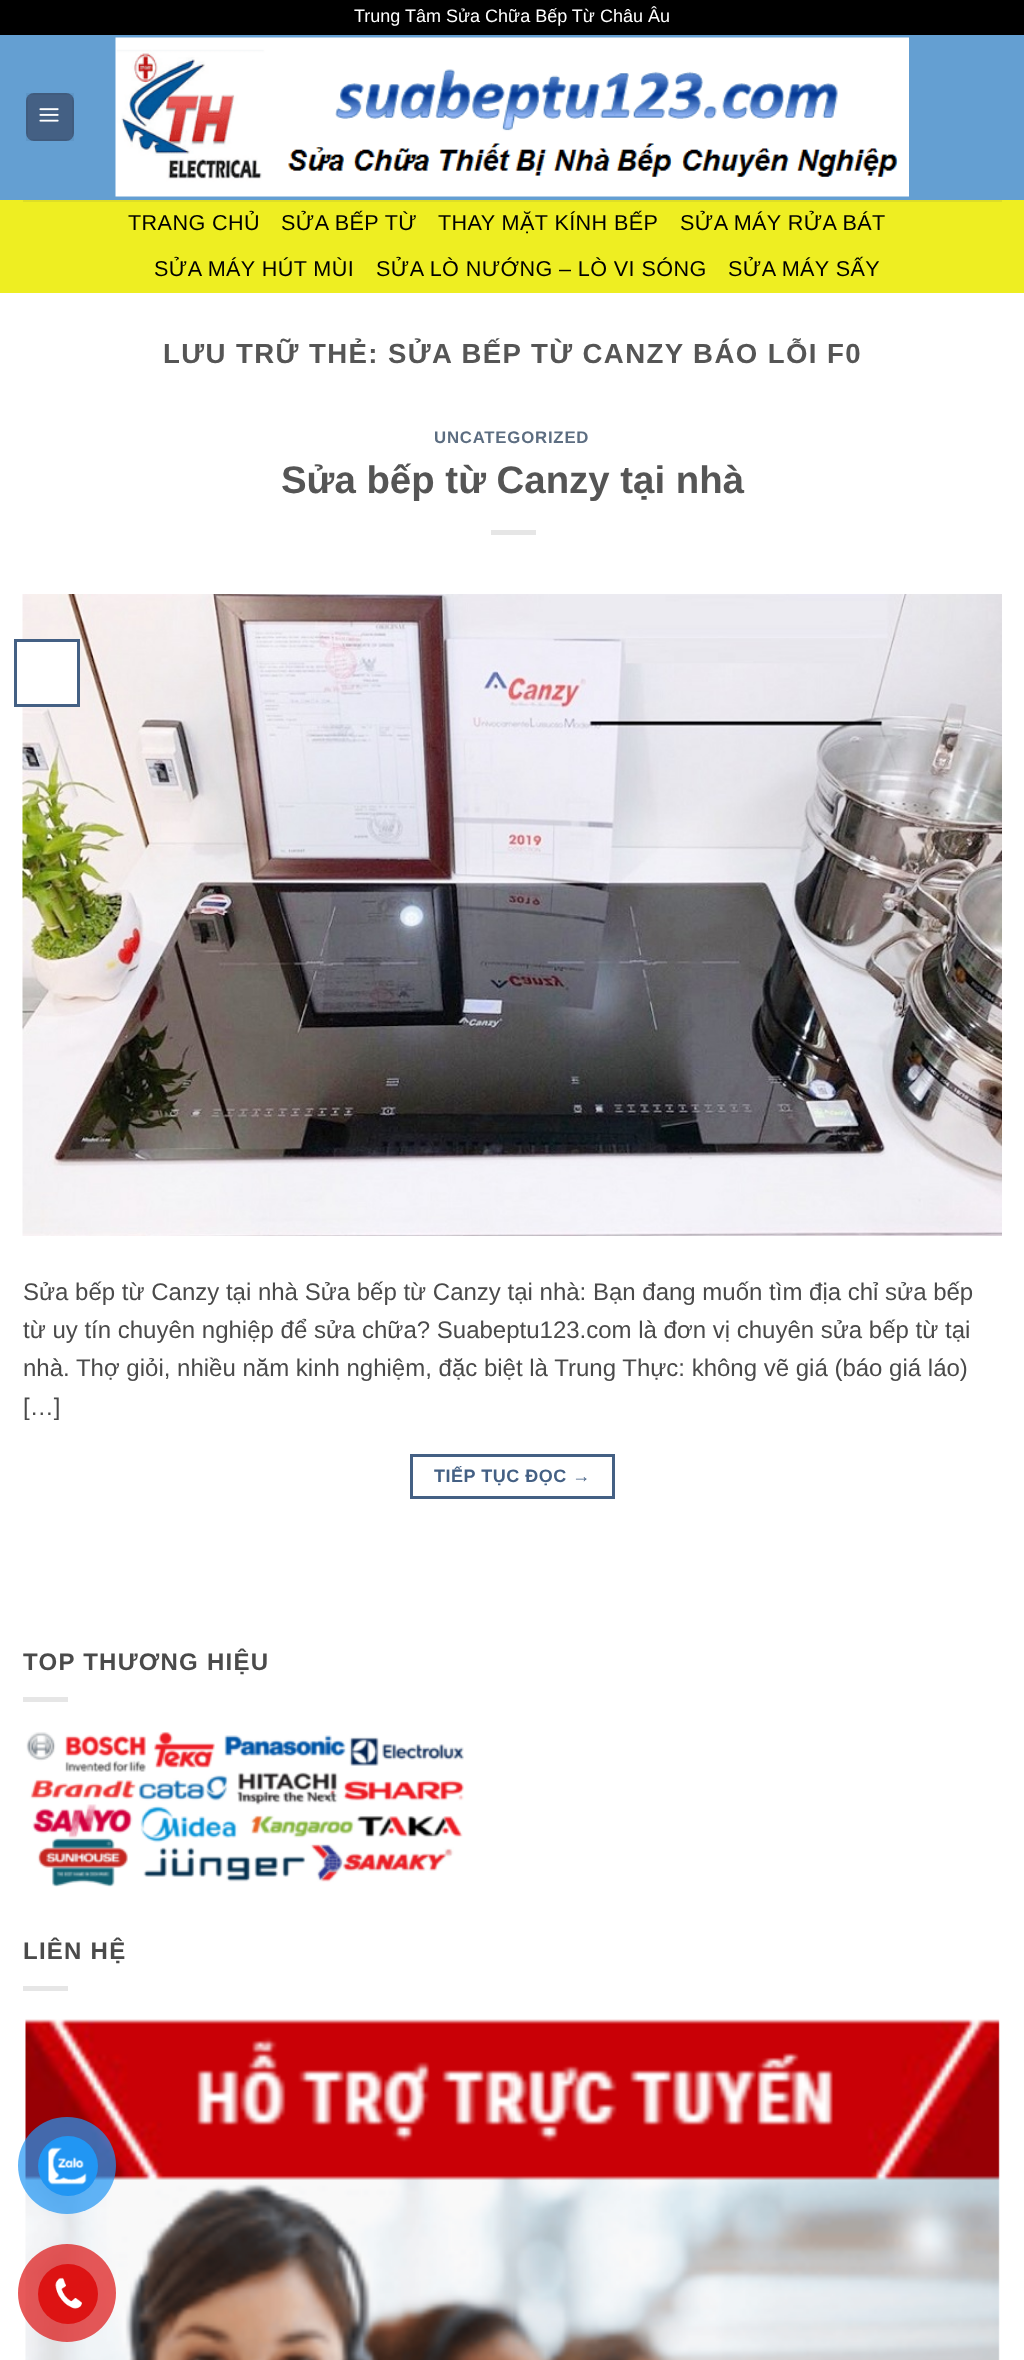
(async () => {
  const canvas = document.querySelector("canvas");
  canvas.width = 1024;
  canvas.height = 2360;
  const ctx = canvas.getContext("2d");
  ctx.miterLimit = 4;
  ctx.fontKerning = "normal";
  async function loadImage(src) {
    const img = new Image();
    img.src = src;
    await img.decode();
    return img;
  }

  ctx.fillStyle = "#ffffff";
  ctx.fillRect(0, 0, 1024, 2360);
  ctx.fillStyle = "#000000";
  ctx.fillRect(0, 0, 1024, 35);
  ctx.fillStyle = "#649fd2";
  ctx.fillRect(0, 35, 1024, 165);
  ctx.fillStyle = "#446084";
  ctx.beginPath();
  ctx.roundRect(26, 93, 48, 48, 8);
  ctx.fill();
  ctx.strokeStyle = "rgba(0, 0, 0, 0.05)";
  ctx.lineWidth = 2;
  ctx.strokeRect(27, 94, 46, 46);
  ctx.drawImage(await loadImage("img/1.png"), 39, 108, 20, 14);
  ctx.drawImage(await loadImage("img/2.png"), 115, 37, 794, 160);
  for (const [x, y, w, h, color] of [
    [0, 200, 1024, 93, "#eeee22"],
    [23, 200, 979, 2, "#dede26"],
    [491, 530, 45, 5, "#e6e6e6"],
  ]) {
    ctx.fillStyle = color;
    ctx.fillRect(x, y, w, h);
  }
  ctx.drawImage(await loadImage("img/3.png"), 22, 594, 980, 642);
  ctx.fillStyle = "#ffffff";
  ctx.fillRect(22, 642, 55, 62);
  ctx.strokeStyle = "#446084";
  ctx.lineWidth = 3;
  ctx.strokeRect(15.5, 640.5, 63, 65);
  ctx.strokeRect(411.5, 1455.5, 202, 42);
  ctx.fillStyle = "#e6e6e6";
  ctx.fillRect(23, 1697, 45, 5);
  ctx.drawImage(await loadImage("img/4.png"), 26, 1731, 438, 156);
  ctx.fillRect(23, 1986, 45, 5);
  ctx.drawImage(await loadImage("img/5.png"), 25, 2019, 975, 341);
  ctx.fillStyle = "rgba(33, 150, 243, 0.7)";
  ctx.beginPath();
  ctx.roundRect(18, 2117, 98, 97, 48.5);
  ctx.fill();
  ctx.fillStyle = "#2196f3";
  ctx.beginPath();
  ctx.arc(68, 2166, 30, 0, Math.PI * 2);
  ctx.fill();
  ctx.drawImage(await loadImage("img/6.png"), 48, 2147, 39, 38);
  ctx.fillStyle = "rgba(221, 19, 19, 0.7)";
  ctx.beginPath();
  ctx.arc(67, 2293, 49, 0, Math.PI * 2);
  ctx.fill();
  ctx.fillStyle = "#dd1313";
  ctx.beginPath();
  ctx.arc(68, 2294, 30, 0, Math.PI * 2);
  ctx.fill();
  ctx.drawImage(await loadImage("img/7.png"), 55, 2277, 27, 32);
  ctx.font = "18px Liberation Sans";
  ctx.fillStyle = "#ffffff";
  ctx.fillText("Trung Tâm Sửa Chữa Bếp Từ Châu Âu", 354, 22);
  ctx.letterSpacing = "0.4px";
  ctx.font = "21.6px Liberation Sans";
  ctx.fillStyle = "#000000";
  for (const [text, x, y] of [
    ["TRANG CHỦ", 128, 230],
    ["SỬA BẾP TỪ", 281, 230],
    ["THAY MẶT KÍNH BẾP", 438, 230],
    ["SỬA MÁY RỬA BÁT", 680, 230],
    ["SỬA MÁY HÚT MÙI", 154, 276],
    ["SỬA LÒ NƯỚNG – LÒ VI SÓNG", 376, 276],
    ["SỬA MÁY SẤY", 728, 276],
  ]) {
    ctx.fillText(text, x, y);
  }
  ctx.letterSpacing = "1.4px";
  ctx.font = "bold 27.6px Liberation Sans";
  ctx.fillStyle = "#555555";
  ctx.fillText("LƯU TRỮ THẺ: SỬA BẾP TỪ CANZY BÁO LỖI F0", 163, 363);
  ctx.letterSpacing = "0.8px";
  ctx.font = "bold 16.75px Liberation Sans";
  ctx.fillStyle = "#5c6d81";
  ctx.fillText("UNCATEGORIZED", 434, 443);
  ctx.letterSpacing = "0px";
  ctx.font = "bold 38.4px Liberation Sans";
  ctx.fillStyle = "#555555";
  ctx.fillText("Sửa bếp từ Canzy tại nhà", 281, 493);
  ctx.font = "24px Liberation Sans";
  ctx.fillStyle = "#4a4a4a";
  for (const [text, x, y] of [
    ["Sửa bếp từ Canzy tại nhà Sửa bếp từ Canzy tại nhà: Bạn đang muốn tìm địa chỉ sửa bếp", 23, 1300],
    ["từ uy tín chuyên nghiệp để sửa chữa? Suabeptu123.com là đơn vị chuyên sửa bếp từ tại", 23, 1338],
    ["nhà. Thợ giỏi, nhiều năm kinh nghiệm, đặc biệt là Trung Thực: không vẽ giá (báo giá láo)", 23, 1376],
    ["[…]", 23, 1415],
  ]) {
    ctx.fillText(text, x, y);
  }
  ctx.letterSpacing = "0.5px";
  ctx.font = "bold 18px Liberation Sans";
  ctx.fillStyle = "#446084";
  ctx.fillText("TIẾP TỤC ĐỌC →", 434, 1482);
  ctx.letterSpacing = "1.25px";
  ctx.font = "bold 24px Liberation Sans";
  ctx.fillStyle = "#4a4a4a";
  ctx.fillText("TOP THƯƠNG HIỆU", 23, 1670);
  ctx.fillText("LIÊN HỆ", 23, 1959);
})();
